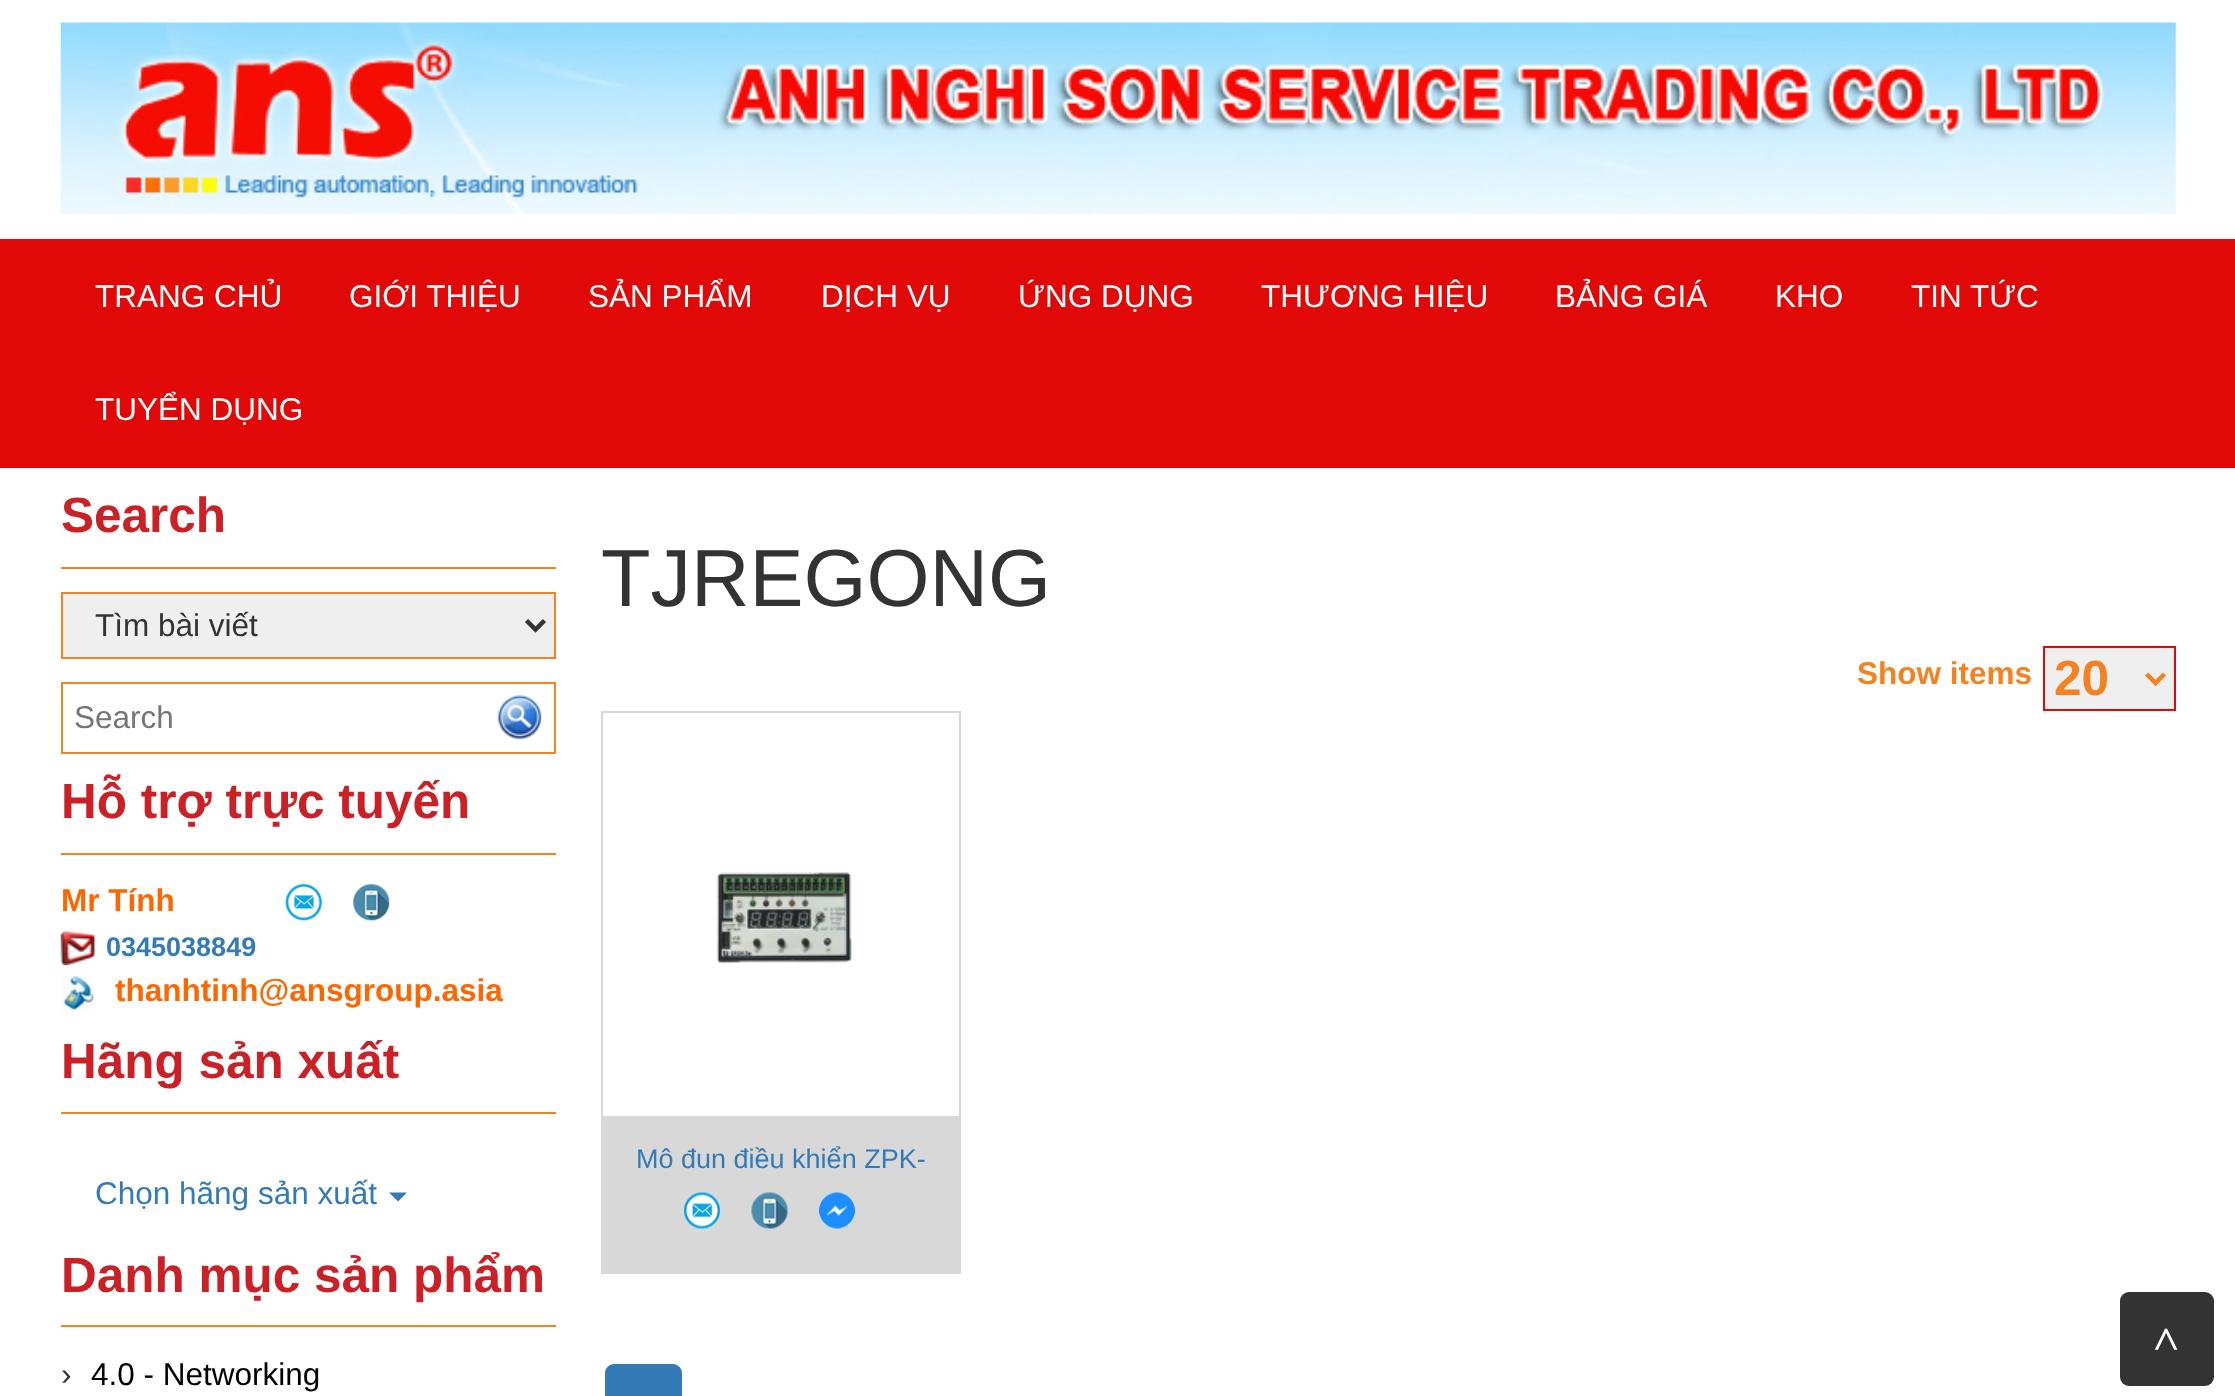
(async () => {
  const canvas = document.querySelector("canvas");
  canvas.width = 2235;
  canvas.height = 1396;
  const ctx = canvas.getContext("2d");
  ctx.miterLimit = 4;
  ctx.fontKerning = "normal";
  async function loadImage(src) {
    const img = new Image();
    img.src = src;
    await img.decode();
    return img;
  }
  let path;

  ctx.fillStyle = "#ffffff";
  ctx.fillRect(0, 0, 2235, 1396);
  ctx.drawImage(await loadImage("img/1.png"), 60, 22, 2116, 192);
  ctx.fillStyle = "#e10808";
  ctx.fillRect(0, 239, 2235, 229);
  ctx.fillStyle = "#f58220";
  ctx.fillRect(61, 567, 495, 2);
  ctx.fillStyle = "#efefef";
  ctx.beginPath();
  ctx.rect(62, 593, 493, 65);
  ctx.fill();
  ctx.strokeStyle = "#f58220";
  ctx.lineWidth = 2;
  ctx.stroke();
  path = new Path2D("M526.5 620.5L535.5 629.5L544.5 620.5");
  ctx.strokeStyle = "#333333";
  ctx.lineWidth = 4.5;
  ctx.stroke(path);
  ctx.strokeStyle = "#f58220";
  ctx.lineWidth = 2;
  ctx.strokeRect(62, 683, 493, 70);
  ctx.drawImage(await loadImage("img/2.png"), 497, 695, 46, 45);
  ctx.fillStyle = "#f58220";
  ctx.fillRect(61, 853, 495, 2);
  ctx.drawImage(await loadImage("img/3.png"), 285, 884, 37, 37);
  ctx.drawImage(await loadImage("img/4.png"), 353, 884, 37, 37);
  ctx.drawImage(await loadImage("img/5.png"), 60, 931, 35, 35);
  ctx.drawImage(await loadImage("img/6.png"), 61, 976, 34, 35);
  ctx.fillRect(61, 1112, 495, 2);
  ctx.fillStyle = "#337ab7";
  path = new Path2D("M389 1192.5H407L398 1201.5Z");
  ctx.fill(path);
  ctx.fillStyle = "#f58220";
  ctx.fillRect(61, 1325, 495, 2);
  ctx.fillStyle = "#efefef";
  ctx.beginPath();
  ctx.rect(2044, 647, 131, 63);
  ctx.fill();
  ctx.strokeStyle = "#e10808";
  ctx.stroke();
  path = new Path2D("M2146.5 674L2155.5 683L2164.5 674");
  ctx.strokeStyle = "#f58220";
  ctx.lineWidth = 4.5;
  ctx.stroke(path);
  for (const [x, y, w, h, color] of [
    [601, 711, 360, 2, "#d7d7d7"],
    [959, 711, 2, 405, "#d7d7d7"],
    [601, 711, 2, 405, "#d7d7d7"],
  ]) {
    ctx.fillStyle = color;
    ctx.fillRect(x, y, w, h);
  }
  ctx.drawImage(await loadImage("img/7.png"), 716, 872, 136, 92);
  ctx.fillStyle = "#d8d8d8";
  ctx.fillRect(601, 1116, 360, 158);
  ctx.drawImage(await loadImage("img/8.png"), 684, 1192, 36, 37);
  ctx.drawImage(await loadImage("img/9.png"), 751, 1192, 37, 37);
  ctx.drawImage(await loadImage("img/10.png"), 819, 1192, 36, 37);
  ctx.fillStyle = "#337ab7";
  ctx.beginPath();
  ctx.roundRect(606, 1365, 75, 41, 8);
  ctx.fill();
  ctx.strokeStyle = "#337ab7";
  ctx.lineWidth = 2;
  ctx.stroke();
  ctx.fillStyle = "#333333";
  ctx.beginPath();
  ctx.roundRect(2120, 1292, 94, 94, 9);
  ctx.fill();
  ctx.font = "31.5px Liberation Sans";
  ctx.fillStyle = "#ffffff";
  for (const [text, x, y] of [
    ["TRANG CHỦ", 95, 307],
    ["GIỚI THIỆU", 349, 307],
    ["SẢN PHẨM", 588, 307],
    ["DỊCH VỤ", 821, 307],
    ["ỨNG DỤNG", 1018, 307],
    ["THƯƠNG HIỆU", 1261, 307],
    ["BẢNG GIÁ", 1555, 307],
    ["KHO", 1775, 307],
    ["TIN TỨC", 1911, 307],
    ["TUYỂN DỤNG", 95, 420],
  ]) {
    ctx.fillText(text, x, y);
  }
  ctx.font = "bold 49.5px Liberation Sans";
  ctx.fillStyle = "#cb2026";
  ctx.fillText("Search", 61, 532);
  ctx.font = "31.5px Liberation Sans";
  ctx.fillStyle = "#333333";
  ctx.fillText("Tìm bài viết", 95, 636);
  ctx.fillStyle = "#757575";
  ctx.fillText("Search", 74, 728);
  ctx.font = "bold 49.5px Liberation Sans";
  ctx.fillStyle = "#cb2026";
  ctx.fillText("Hỗ trợ trực tuyến", 61, 818);
  ctx.font = "bold 31.5px Liberation Sans";
  ctx.fillStyle = "#ff6600";
  ctx.fillText("Mr Tính", 61, 911);
  ctx.font = "bold 27px Liberation Sans";
  ctx.fillStyle = "#337ab7";
  ctx.fillText("0345038849", 106, 956);
  ctx.font = "bold 31.5px Liberation Sans";
  ctx.fillStyle = "#ff6600";
  ctx.fillText("thanhtinh@ansgroup.asia", 115, 1001);
  ctx.font = "bold 49.5px Liberation Sans";
  ctx.fillStyle = "#cb2026";
  ctx.fillText("Hãng sản xuất", 61, 1078);
  ctx.font = "31.5px Liberation Sans";
  ctx.fillStyle = "#337ab7";
  ctx.fillText("Chọn hãng sản xuất", 95, 1204);
  ctx.font = "bold 49.5px Liberation Sans";
  ctx.fillStyle = "#cb2026";
  ctx.fillText("Danh mục sản phẩm", 61, 1292);
  ctx.font = "31.5px Liberation Sans";
  ctx.fillStyle = "#333333";
  ctx.fillText("›", 61, 1385);
  ctx.fillStyle = "#000000";
  ctx.fillText("4.0 - Networking", 91, 1385);
  ctx.font = "81px Liberation Sans";
  ctx.fillStyle = "#333333";
  ctx.fillText("TJREGONG", 601, 606);
  ctx.font = "bold 31.5px Liberation Sans";
  ctx.fillStyle = "#f58220";
  ctx.fillText("Show items", 1857, 684);
  ctx.font = "bold 49.5px Liberation Sans";
  ctx.fillText("20", 2054, 695);
  ctx.font = "27px Liberation Sans";
  ctx.fillStyle = "#337ab7";
  ctx.fillText("Mô đun điều khiển ZPK-", 636, 1168);
  ctx.font = "bold 45px Liberation Serif";
  ctx.fillStyle = "#ffffff";
  ctx.save();
  ctx.translate(2181, 1352);
  ctx.rotate(-90 * Math.PI / 180);
  ctx.fillText(">", 0, 0);
  ctx.restore();
})();
